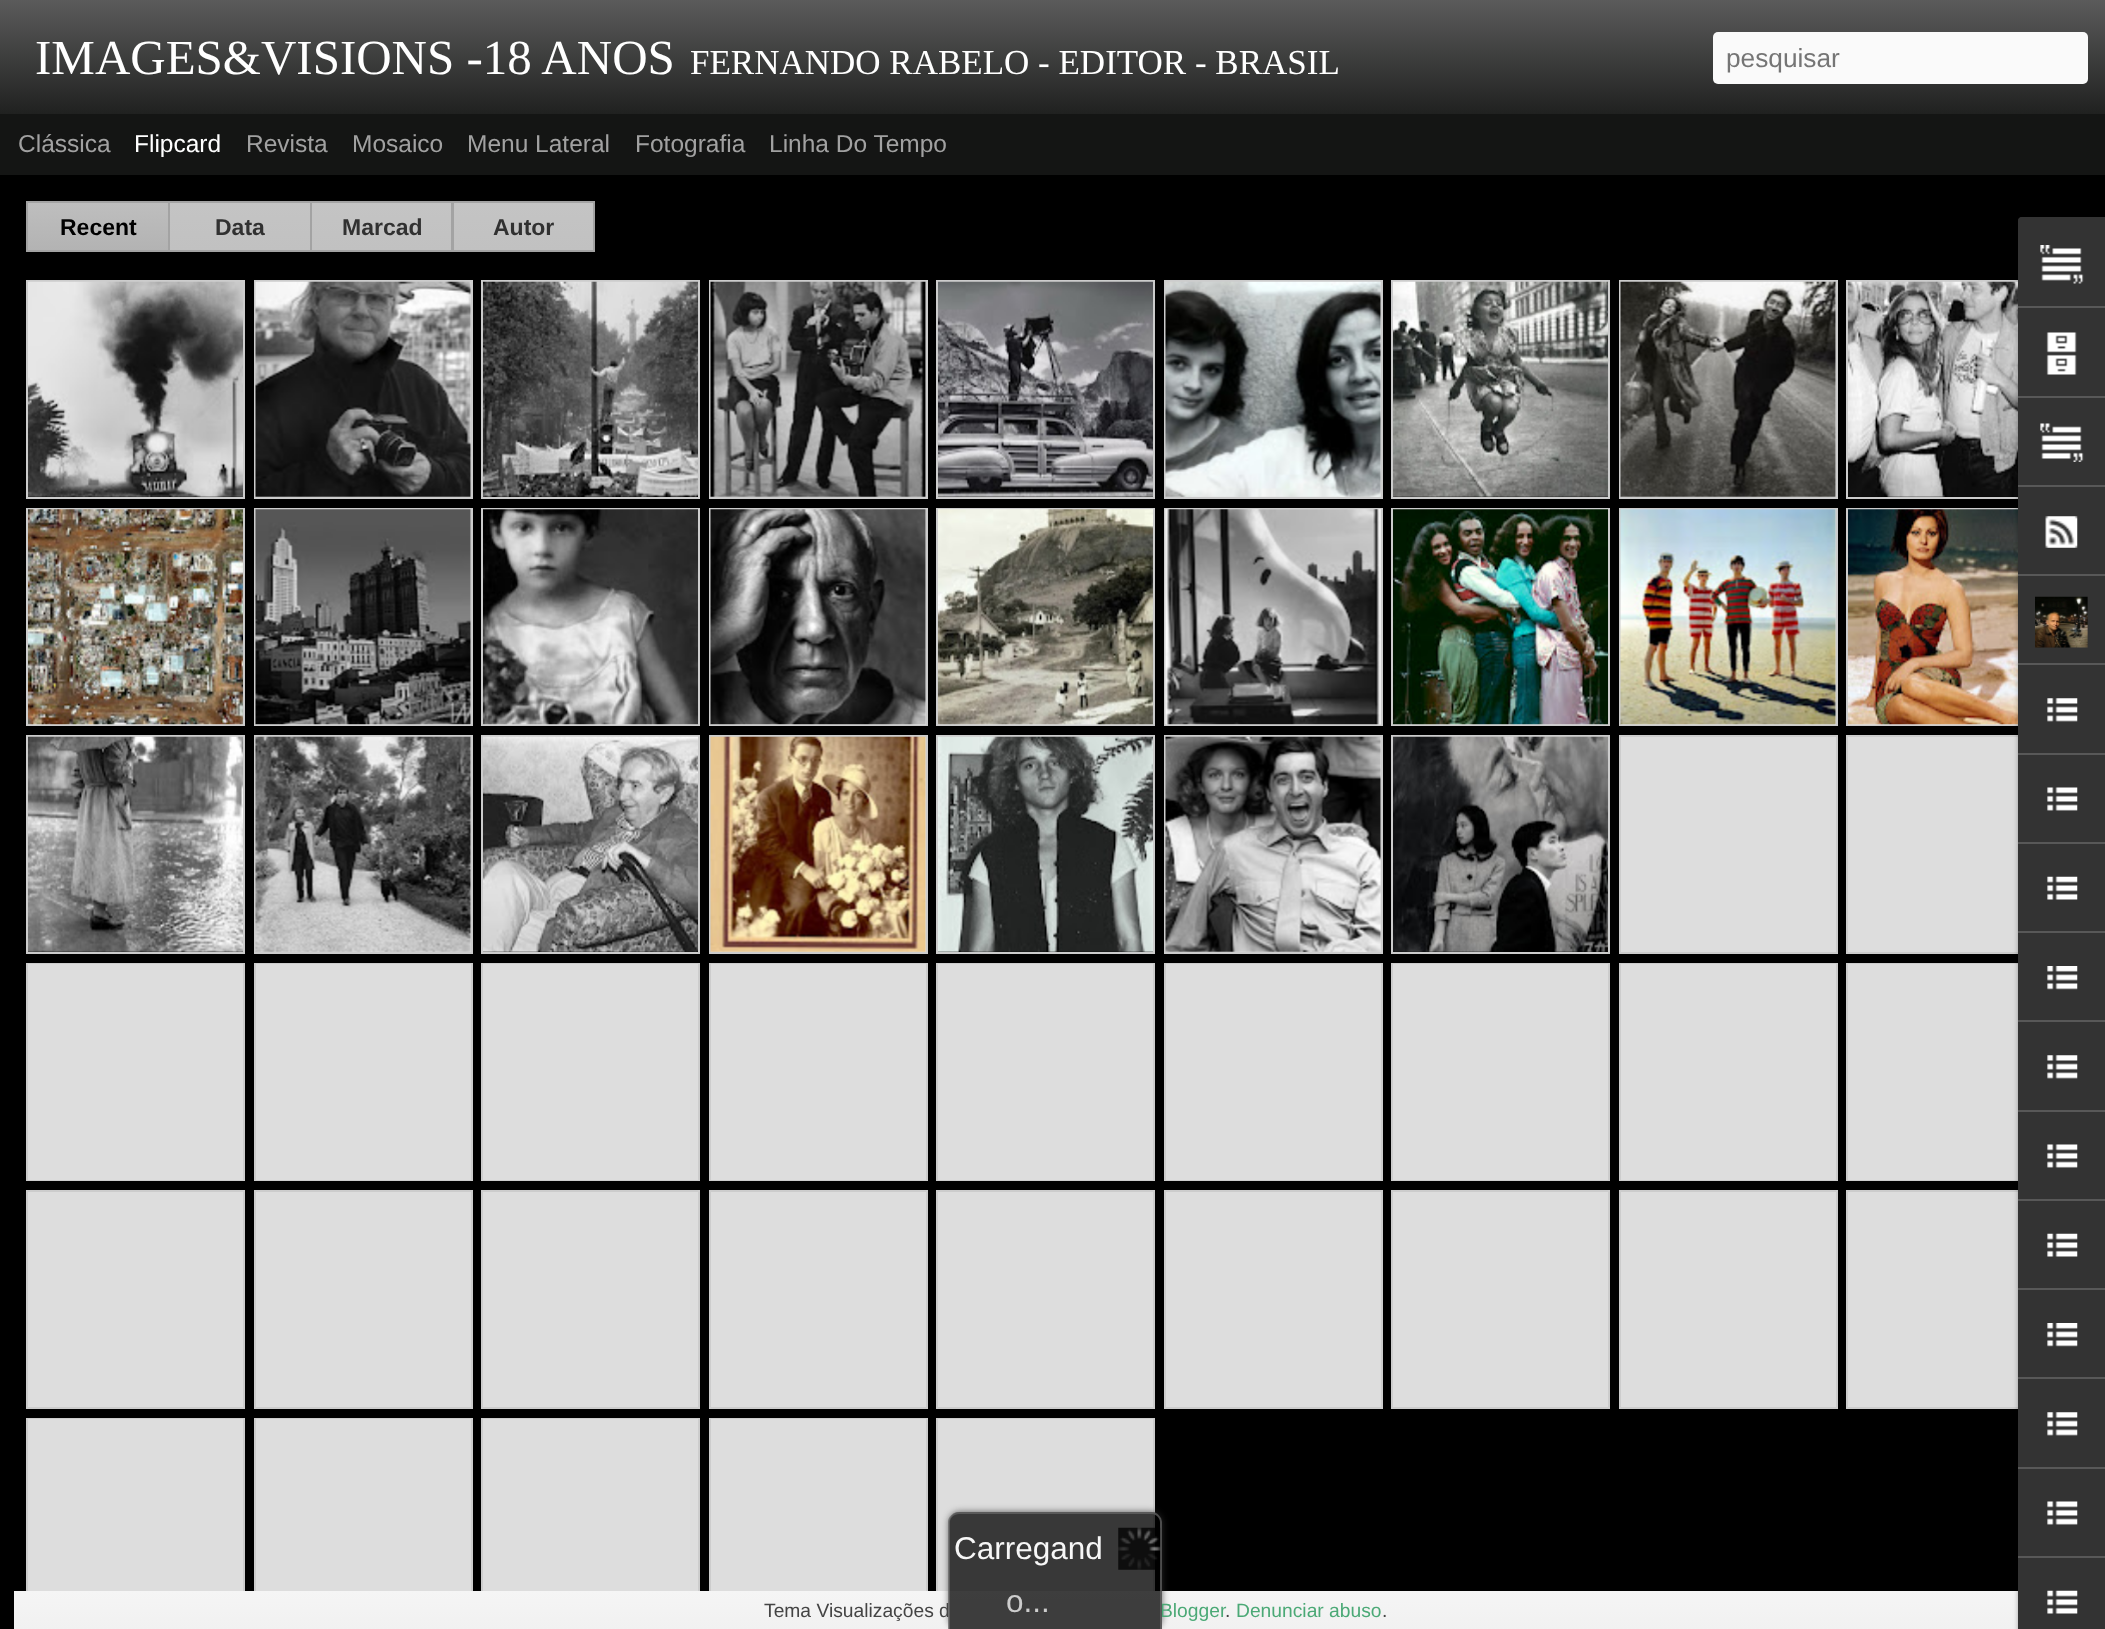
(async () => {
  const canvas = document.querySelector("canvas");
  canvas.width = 2105;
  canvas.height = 1629;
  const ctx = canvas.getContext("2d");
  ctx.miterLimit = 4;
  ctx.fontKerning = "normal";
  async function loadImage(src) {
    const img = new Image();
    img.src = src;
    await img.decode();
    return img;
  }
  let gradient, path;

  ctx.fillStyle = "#000000";
  ctx.fillRect(0, 0, 2105, 1629);
  gradient = ctx.createLinearGradient(0, 0, 0, 114);
  gradient.addColorStop(0, "#5b5b5b");
  gradient.addColorStop(1, "#202120");
  ctx.fillStyle = gradient;
  ctx.fillRect(0, 0, 2105, 114);
  ctx.fillStyle = "#fafafa";
  ctx.beginPath();
  ctx.roundRect(1713, 32, 375, 52, 5);
  ctx.fill();
  ctx.fillStyle = "#141514";
  ctx.fillRect(0, 114, 2105, 61);
  gradient = ctx.createLinearGradient(98, 203, 98, 250);
  gradient.addColorStop(0, "#bebebe");
  gradient.addColorStop(1, "#b3b3b3");
  ctx.fillStyle = gradient;
  ctx.fillRect(28, 203, 140, 47);
  ctx.strokeStyle = "#a3a3a3";
  ctx.lineWidth = 2;
  ctx.strokeRect(27, 202, 142, 49);
  gradient = ctx.createLinearGradient(240, 203, 240, 250);
  gradient.addColorStop(0, "#c4c4c4");
  gradient.addColorStop(1, "#c1c1c1");
  ctx.fillStyle = gradient;
  ctx.fillRect(170, 203, 140, 47);
  ctx.strokeRect(169, 202, 142, 49);
  gradient = ctx.createLinearGradient(382, 203, 382, 250);
  gradient.addColorStop(0, "#c4c4c4");
  gradient.addColorStop(1, "#c1c1c1");
  ctx.fillStyle = gradient;
  ctx.fillRect(312, 203, 139, 47);
  ctx.strokeRect(311, 202, 141, 49);
  gradient = ctx.createLinearGradient(523, 203, 523, 250);
  gradient.addColorStop(0, "#c4c4c4");
  gradient.addColorStop(1, "#c1c1c1");
  ctx.fillStyle = gradient;
  ctx.fillRect(454, 203, 139, 47);
  ctx.strokeRect(453, 202, 141, 49);
  ctx.strokeStyle = "#cccccc";
  ctx.strokeRect(27, 281, 217, 217);
  ctx.drawImage(await loadImage("img/1.png"), 28, 281, 215, 216);
  ctx.strokeRect(255, 281, 217, 217);
  ctx.fillStyle = "#dddddd";
  ctx.fillRect(256, 282, 215, 215);
  ctx.drawImage(await loadImage("img/2.png"), 255, 281, 216, 216);
  ctx.strokeRect(482, 281, 217, 217);
  ctx.drawImage(await loadImage("img/3.png"), 483, 281, 215, 216);
  ctx.strokeRect(710, 281, 217, 217);
  ctx.fillRect(711, 282, 215, 215);
  ctx.drawImage(await loadImage("img/4.png"), 710, 281, 216, 216);
  ctx.strokeRect(937, 281, 217, 217);
  ctx.drawImage(await loadImage("img/5.png"), 938, 281, 215, 216);
  ctx.strokeRect(1165, 281, 217, 217);
  ctx.fillRect(1166, 282, 215, 215);
  ctx.drawImage(await loadImage("img/6.png"), 1165, 281, 216, 216);
  ctx.strokeRect(1392, 281, 217, 217);
  ctx.drawImage(await loadImage("img/7.png"), 1393, 281, 215, 216);
  ctx.strokeRect(1620, 281, 217, 217);
  ctx.fillRect(1621, 282, 215, 215);
  ctx.drawImage(await loadImage("img/8.png"), 1620, 281, 216, 216);
  ctx.strokeRect(1847, 281, 217, 217);
  ctx.drawImage(await loadImage("img/9.png"), 1848, 281, 170, 216);
  ctx.strokeRect(27, 509, 217, 216);
  ctx.fillRect(28, 509, 215, 216);
  ctx.drawImage(await loadImage("img/10.png"), 28, 509, 215, 216);
  ctx.strokeRect(255, 509, 217, 216);
  ctx.fillRect(256, 509, 215, 216);
  ctx.drawImage(await loadImage("img/11.png"), 255, 509, 216, 216);
  ctx.strokeRect(482, 509, 217, 216);
  ctx.fillRect(483, 509, 215, 216);
  ctx.drawImage(await loadImage("img/12.png"), 483, 509, 215, 216);
  ctx.strokeRect(710, 509, 217, 216);
  ctx.fillRect(711, 509, 215, 216);
  ctx.drawImage(await loadImage("img/13.png"), 710, 509, 216, 216);
  ctx.strokeRect(937, 509, 217, 216);
  ctx.fillRect(938, 509, 215, 216);
  ctx.drawImage(await loadImage("img/14.png"), 938, 509, 215, 216);
  ctx.strokeRect(1165, 509, 217, 216);
  ctx.fillRect(1166, 509, 215, 216);
  ctx.drawImage(await loadImage("img/15.png"), 1165, 509, 216, 216);
  ctx.strokeRect(1392, 509, 217, 216);
  ctx.fillRect(1393, 509, 215, 216);
  ctx.drawImage(await loadImage("img/16.png"), 1393, 509, 215, 216);
  ctx.strokeRect(1620, 509, 217, 216);
  ctx.fillRect(1621, 509, 215, 216);
  ctx.drawImage(await loadImage("img/17.png"), 1620, 509, 216, 216);
  ctx.strokeRect(1847, 509, 217, 216);
  ctx.fillRect(1848, 509, 170, 216);
  ctx.drawImage(await loadImage("img/18.png"), 1848, 509, 170, 216);
  ctx.strokeRect(27, 736, 217, 217);
  ctx.drawImage(await loadImage("img/19.png"), 28, 736, 215, 216);
  ctx.strokeRect(255, 736, 217, 217);
  ctx.fillRect(256, 737, 215, 215);
  ctx.drawImage(await loadImage("img/20.png"), 255, 736, 216, 216);
  ctx.strokeRect(482, 736, 217, 217);
  ctx.drawImage(await loadImage("img/21.png"), 483, 736, 215, 216);
  ctx.strokeRect(710, 736, 217, 217);
  ctx.fillRect(711, 737, 215, 215);
  ctx.drawImage(await loadImage("img/22.png"), 710, 736, 216, 216);
  ctx.strokeRect(937, 736, 217, 217);
  ctx.drawImage(await loadImage("img/23.png"), 938, 736, 215, 216);
  ctx.strokeRect(1165, 736, 217, 217);
  ctx.fillRect(1166, 737, 215, 215);
  ctx.drawImage(await loadImage("img/24.png"), 1165, 736, 216, 216);
  ctx.strokeRect(1392, 736, 217, 217);
  ctx.drawImage(await loadImage("img/25.png"), 1393, 736, 215, 216);
  ctx.strokeRect(1620, 736, 217, 217);
  ctx.fillRect(1621, 737, 215, 215);
  ctx.strokeRect(1847, 736, 217, 217);
  ctx.fillRect(1848, 737, 170, 215);
  ctx.strokeRect(27, 964, 217, 216);
  ctx.fillRect(28, 964, 215, 216);
  ctx.strokeRect(255, 964, 217, 216);
  ctx.fillRect(256, 964, 215, 216);
  ctx.strokeRect(482, 964, 217, 216);
  ctx.fillRect(483, 964, 215, 216);
  ctx.strokeRect(710, 964, 217, 216);
  ctx.fillRect(711, 964, 215, 216);
  ctx.strokeRect(937, 964, 217, 216);
  ctx.fillRect(938, 964, 215, 216);
  ctx.strokeRect(1165, 964, 217, 216);
  ctx.fillRect(1166, 964, 215, 216);
  ctx.strokeRect(1392, 964, 217, 216);
  ctx.fillRect(1393, 964, 215, 216);
  ctx.strokeRect(1620, 964, 217, 216);
  ctx.fillRect(1621, 964, 215, 216);
  ctx.strokeRect(1847, 964, 217, 216);
  ctx.fillRect(1848, 964, 170, 216);
  ctx.strokeRect(27, 1191, 217, 217);
  ctx.fillRect(28, 1192, 215, 215);
  ctx.strokeRect(255, 1191, 217, 217);
  ctx.fillRect(256, 1192, 215, 215);
  ctx.strokeRect(482, 1191, 217, 217);
  ctx.fillRect(483, 1192, 215, 215);
  ctx.strokeRect(710, 1191, 217, 217);
  ctx.fillRect(711, 1192, 215, 215);
  ctx.strokeRect(937, 1191, 217, 217);
  ctx.fillRect(938, 1192, 215, 215);
  ctx.strokeRect(1165, 1191, 217, 217);
  ctx.fillRect(1166, 1192, 215, 215);
  ctx.strokeRect(1392, 1191, 217, 217);
  ctx.fillRect(1393, 1192, 215, 215);
  ctx.strokeRect(1620, 1191, 217, 217);
  ctx.fillRect(1621, 1192, 215, 215);
  ctx.strokeRect(1847, 1191, 217, 217);
  ctx.fillRect(1848, 1192, 170, 215);
  ctx.strokeRect(27, 1419, 217, 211);
  ctx.fillRect(28, 1419, 215, 172);
  ctx.strokeRect(255, 1419, 217, 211);
  ctx.fillRect(256, 1419, 215, 172);
  ctx.strokeRect(482, 1419, 217, 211);
  ctx.fillRect(483, 1419, 215, 172);
  ctx.strokeRect(710, 1419, 217, 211);
  ctx.fillRect(711, 1419, 215, 172);
  ctx.strokeRect(937, 1419, 217, 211);
  ctx.fillRect(938, 1419, 215, 172);
  gradient = ctx.createLinearGradient(1075, 1591, 1075, 1629);
  gradient.addColorStop(0, "#f5f5f5");
  gradient.addColorStop(1, "#f1f1f1");
  ctx.fillStyle = gradient;
  ctx.fillRect(14, 1591, 2004, 38);
  ctx.fillStyle = "rgba(0, 0, 0, 0.3)";
  ctx.filter = "blur(2.5px)";
  ctx.beginPath();
  ctx.roundRect(2018, 219, 87, 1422, 4);
  ctx.fill();
  ctx.filter = "none";
  ctx.fillStyle = "#333333";
  path = new Path2D("M2022 217H2105V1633H2022C2020 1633 2018 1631 2018 1629V221C2018 219 2020 217 2022 217Z");
  ctx.fill(path);
  ctx.beginPath();
  ctx.roundRect(2018, 217, 87, 89, [4, 0, 0, 0]);
  ctx.fill();
  ctx.drawImage(await loadImage("img/26.png"), 2040, 245, 44, 39);
  ctx.fillStyle = "#585858";
  ctx.fillRect(2018, 306, 87, 2);
  ctx.drawImage(await loadImage("img/27.png"), 2046, 332, 31, 43);
  ctx.fillRect(2018, 396, 87, 2);
  ctx.drawImage(await loadImage("img/28.png"), 2040, 423, 44, 39);
  ctx.fillRect(2018, 485, 87, 2);
  ctx.drawImage(await loadImage("img/29.png"), 2045, 516, 33, 32);
  ctx.fillRect(2018, 574, 87, 2);
  ctx.drawImage(await loadImage("img/30.png"), 2035, 596, 53, 52);
  ctx.fillRect(2018, 663, 87, 2);
  ctx.drawImage(await loadImage("img/31.png"), 2047, 698, 31, 24);
  ctx.fillRect(2018, 753, 87, 2);
  ctx.drawImage(await loadImage("img/32.png"), 2047, 787, 31, 24);
  ctx.fillRect(2018, 842, 87, 2);
  ctx.drawImage(await loadImage("img/33.png"), 2047, 876, 31, 24);
  ctx.fillRect(2018, 931, 87, 2);
  ctx.drawImage(await loadImage("img/34.png"), 2047, 966, 31, 24);
  ctx.fillRect(2018, 1020, 87, 2);
  ctx.drawImage(await loadImage("img/31.png"), 2047, 1055, 31, 24);
  ctx.fillRect(2018, 1110, 87, 2);
  ctx.drawImage(await loadImage("img/32.png"), 2047, 1144, 31, 24);
  ctx.fillRect(2018, 1199, 87, 2);
  ctx.drawImage(await loadImage("img/33.png"), 2047, 1233, 31, 24);
  ctx.fillRect(2018, 1288, 87, 2);
  ctx.drawImage(await loadImage("img/34.png"), 2047, 1323, 31, 24);
  ctx.fillRect(2018, 1377, 87, 2);
  ctx.drawImage(await loadImage("img/31.png"), 2047, 1412, 31, 24);
  ctx.fillRect(2018, 1467, 87, 2);
  ctx.drawImage(await loadImage("img/32.png"), 2047, 1501, 31, 24);
  ctx.fillRect(2018, 1556, 87, 2);
  ctx.drawImage(await loadImage("img/33.png"), 2047, 1590, 31, 24);
  ctx.save();
  path = new Path2D("M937 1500H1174V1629H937ZM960 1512H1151C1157 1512 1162 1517 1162 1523V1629H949V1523C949 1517 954 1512 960 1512Z");
  ctx.clip(path, "evenodd");
  ctx.fillStyle = "rgba(51, 51, 51, 0.75)";
  ctx.filter = "blur(3.5px)";
  ctx.beginPath();
  ctx.roundRect(949, 1512, 213, 117, 11);
  ctx.fill();
  ctx.filter = "none";
  ctx.restore();
  ctx.font = "49px Liberation Serif";
  ctx.fillStyle = "#ffffff";
  ctx.fillText("IMAGES&VISIONS -18 ANOS", 35, 74);
  ctx.font = "35px Liberation Serif";
  ctx.fillText("FERNANDO RABELO - EDITOR - BRASIL", 690, 74);
  ctx.font = "26.25px Liberation Sans";
  ctx.fillStyle = "#757575";
  ctx.fillText("pesquisar", 1726, 67);
  ctx.font = "24.5px Liberation Sans";
  ctx.fillStyle = "#a1a1a1";
  ctx.fillText("Clássica", 18, 152);
  ctx.fillStyle = "#ffffff";
  ctx.fillText("Flipcard", 134, 152);
  ctx.fillStyle = "#a1a1a1";
  for (const [text, x, y] of [
    ["Revista", 246, 152],
    ["Mosaico", 352, 152],
    ["Menu Lateral", 467, 152],
    ["Fotografia", 635, 152],
    ["Linha Do Tempo", 769, 152],
  ]) {
    ctx.fillText(text, x, y);
  }
  ctx.font = "bold 23px Liberation Sans";
  ctx.fillStyle = "#000000";
  ctx.fillText("Recent", 60, 235);
  ctx.fillStyle = "#313131";
  for (const [text, x, y] of [
    ["Data", 215, 235],
    ["Marcad", 342, 235],
    ["Autor", 493, 235],
  ]) {
    ctx.fillText(text, x, y);
  }
  ctx.font = "19.25px Liberation Sans";
  ctx.fillStyle = "#444444";
  ctx.fillText("Tema Visualizações d", 764, 1617);
  ctx.fillStyle = "#4ba976";
  ctx.fillText("Blogger", 1160, 1617);
  ctx.fillStyle = "rgba(0, 0, 0, 0.75)";
  ctx.beginPath();
  ctx.roundRect(949, 1512, 213, 117, [11, 11, 0, 0]);
  ctx.fill();
  ctx.fillStyle = "rgba(102, 102, 102, 0.75)";
  path = new Path2D("M959 1512H1152C1157 1512 1162 1517 1162 1522V1629H948V1522C948 1517 953 1512 959 1512ZM959 1514H1152C1156 1514 1160 1518 1160 1522V1629H950V1522C950 1518 954 1514 959 1514Z");
  ctx.fill(path, "evenodd");
  ctx.font = "31.5px Liberation Sans";
  ctx.fillStyle = "#cdcdcd";
  ctx.fillText("o...", 1006, 1612);
  ctx.fillStyle = "#f7f7f7";
  ctx.fillText("Carregand", 954, 1559);
  ctx.drawImage(await loadImage("img/35.png"), 1118, 1527, 43, 43);
  ctx.font = "19.25px Liberation Sans";
  ctx.fillStyle = "#444444";
  ctx.fillText(".", 1225, 1617);
  ctx.fillStyle = "#4ba976";
  ctx.fillText("Denunciar abuso", 1236, 1617);
  ctx.fillStyle = "#444444";
  ctx.fillText(".", 1382, 1617);
})();
